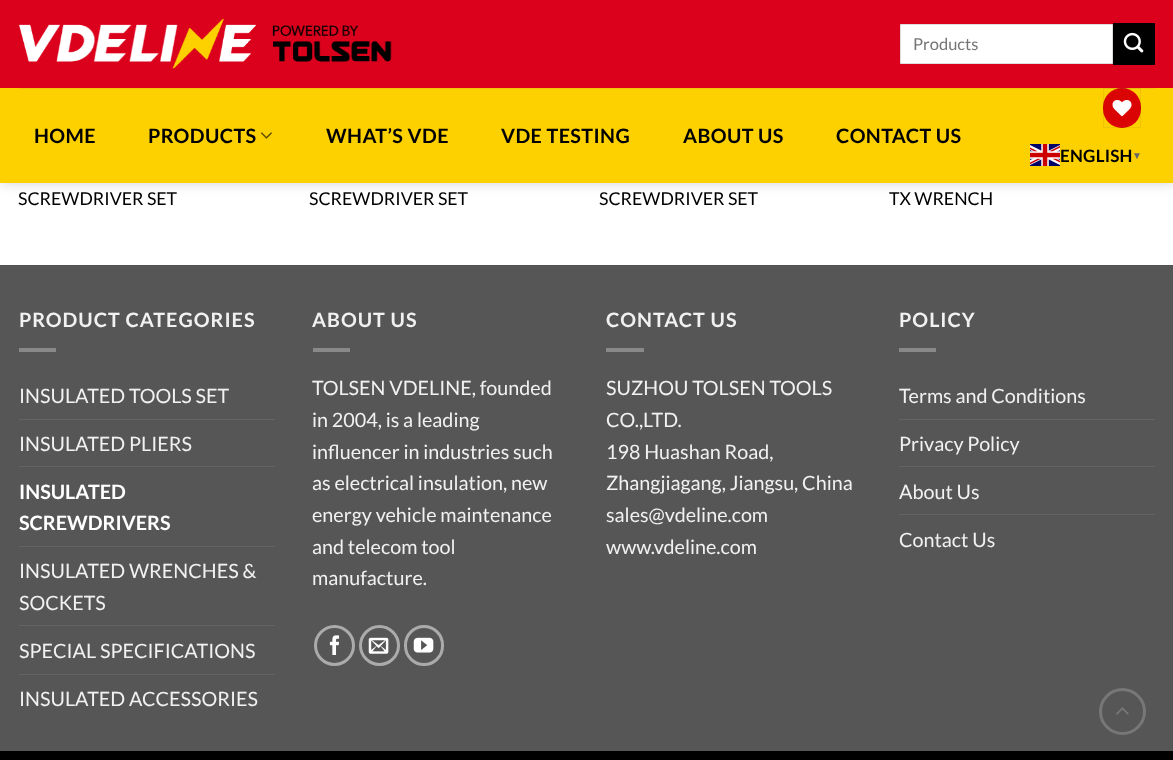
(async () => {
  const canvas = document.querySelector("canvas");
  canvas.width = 1173;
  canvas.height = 760;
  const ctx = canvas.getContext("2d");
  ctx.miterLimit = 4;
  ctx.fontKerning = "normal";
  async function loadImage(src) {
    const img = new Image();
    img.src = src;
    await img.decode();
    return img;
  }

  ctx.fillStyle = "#ffffff";
  ctx.fillRect(0, 0, 1173, 760);
  ctx.fillStyle = "rgba(0, 0, 0, 0.15)";
  ctx.filter = "blur(6px)";
  ctx.beginPath();
  ctx.rect(1, 1, 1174, 183);
  ctx.fill();
  ctx.filter = "none";
  ctx.fillStyle = "#db011c";
  ctx.fillRect(0, 0, 1173, 88);
  ctx.drawImage(await loadImage("img/1.png"), 19, 18, 373, 51);
  ctx.fillStyle = "#ffffff";
  ctx.beginPath();
  ctx.rect(900.5, 24.5, 212, 39);
  ctx.fill();
  ctx.strokeStyle = "#dddddd";
  ctx.stroke();
  ctx.fillStyle = "#000000";
  ctx.fillRect(1113, 23, 42, 42);
  ctx.drawImage(await loadImage("img/2.png"), 1123, 32, 21, 21);
  ctx.fillStyle = "#fdd000";
  ctx.fillRect(0, 88, 1173, 95);
  ctx.fillStyle = "#db0404";
  ctx.beginPath();
  ctx.roundRect(1103, 88, 38, 40, 19);
  ctx.fill();
  ctx.strokeStyle = "rgba(0, 0, 0, 0.05)";
  ctx.strokeRect(1103.5, 88.5, 37, 39);
  ctx.fillStyle = "rgba(119, 119, 119, 0.1)";
  ctx.fillRect(19, 88, 1136, 1);
  ctx.drawImage(await loadImage("img/3.png"), 260, 132, 12, 7);
  ctx.drawImage(await loadImage("img/4.png"), 1112, 100, 20, 17);
  ctx.drawImage(await loadImage("img/5.png"), 1030, 144, 30, 22);
  for (const [x, y, w, h, color] of [
    [0, 266, 1173, 485, "#565656"],
    [0, 265, 1173, 1, "#525252"],
    [19, 348, 37, 4, "#898989"],
    [19, 419, 256, 1, "#646464"],
    [19, 466, 256, 1, "#646464"],
    [19, 546, 256, 1, "#646464"],
    [19, 625, 256, 1, "#646464"],
    [19, 674, 256, 1, "#646464"],
    [313, 348, 37, 4, "#898989"],
  ]) {
    ctx.fillStyle = color;
    ctx.fillRect(x, y, w, h);
  }
  ctx.beginPath();
  ctx.arc(334.5, 645.5, 19, 0, Math.PI * 2);
  ctx.strokeStyle = "#ababab";
  ctx.lineWidth = 3;
  ctx.stroke();
  ctx.drawImage(await loadImage("img/6.png"), 329, 635, 11, 20);
  ctx.beginPath();
  ctx.arc(379.5, 645.5, 19, 0, Math.PI * 2);
  ctx.stroke();
  ctx.drawImage(await loadImage("img/7.png"), 368, 637, 21, 17);
  ctx.beginPath();
  ctx.roundRect(405.5, 626.5, 37, 38, 18.5);
  ctx.stroke();
  ctx.drawImage(await loadImage("img/8.png"), 413, 637, 21, 16);
  for (const [x, y, w, h, color] of [
    [606, 348, 38, 4, "#898989"],
    [899, 348, 37, 4, "#898989"],
    [899, 419, 256, 1, "#646464"],
    [899, 466, 256, 1, "#646464"],
    [899, 514, 256, 1, "#646464"],
  ]) {
    ctx.fillStyle = color;
    ctx.fillRect(x, y, w, h);
  }
  ctx.beginPath();
  ctx.arc(1122.5, 711.5, 22, 0, Math.PI * 2);
  ctx.strokeStyle = "#777777";
  ctx.stroke();
  ctx.drawImage(await loadImage("img/9.png"), 1116, 707, 13, 8);
  ctx.fillStyle = "#000000";
  ctx.fillRect(0, 751, 1173, 9);
  ctx.font = "16.5px Lato";
  ctx.fillStyle = "#757575";
  ctx.fillText("Products", 913, 50);
  ctx.letterSpacing = "0.4px";
  ctx.font = "bold 19.75px Lato";
  ctx.fillStyle = "#000000";
  for (const [text, x, y] of [
    ["HOME", 34, 143],
    ["PRODUCTS", 148, 143],
    ["WHAT’S VDE", 326, 143],
    ["VDE TESTING", 501, 143],
    ["ABOUT US", 683, 143],
    ["CONTACT US", 836, 143],
  ]) {
    ctx.fillText(text, x, y);
  }
  ctx.letterSpacing = "0.25px";
  ctx.font = "bold 17px Lato";
  ctx.fillText("ENGLISH", 1060, 162);
  ctx.font = "bold 10px Liberation Sans";
  ctx.fillStyle = "#666666";
  ctx.fillText("▼", 1132, 159);
  ctx.letterSpacing = "0px";
  ctx.font = "17.75px Lato";
  ctx.fillStyle = "#000000";
  for (const [text, x, y] of [
    ["SCREWDRIVER SET", 18, 205],
    ["SCREWDRIVER SET", 309, 205],
    ["SCREWDRIVER SET", 599, 205],
    ["TX WRENCH", 889, 205],
  ]) {
    ctx.fillText(text, x, y);
  }
  ctx.letterSpacing = "1px";
  ctx.font = "bold 19.75px Lato";
  ctx.fillStyle = "#f1f1f1";
  ctx.fillText("PRODUCT CATEGORIES", 19, 327);
  ctx.letterSpacing = "0px";
  ctx.font = "19.75px Lato";
  ctx.fillText("INSULATED TOOLS SET", 19, 403);
  ctx.fillText("INSULATED PLIERS", 19, 451);
  ctx.font = "bold 19.75px Lato";
  ctx.fillStyle = "#ffffff";
  ctx.fillText("INSULATED", 19, 499);
  ctx.fillText("SCREWDRIVERS", 19, 530);
  ctx.font = "19.75px Lato";
  ctx.fillStyle = "#f1f1f1";
  for (const [text, x, y] of [
    ["INSULATED WRENCHES &", 19, 578],
    ["SOCKETS", 19, 610],
    ["SPECIAL SPECIFICATIONS", 19, 658],
    ["INSULATED ACCESSORIES", 19, 706],
  ]) {
    ctx.fillText(text, x, y);
  }
  ctx.letterSpacing = "1px";
  ctx.font = "bold 19.75px Lato";
  ctx.fillText("ABOUT US", 312, 327);
  ctx.letterSpacing = "0px";
  ctx.font = "19.75px Lato";
  for (const [text, x, y] of [
    ["TOLSEN VDELINE, founded", 312, 395],
    ["in 2004, is a leading", 312, 427],
    ["influencer in industries such", 312, 459],
    ["as electrical insulation, new", 312, 490],
    ["energy vehicle maintenance", 312, 522],
    ["and telecom tool", 312, 554],
    ["manufacture.", 312, 585],
  ]) {
    ctx.fillText(text, x, y);
  }
  ctx.letterSpacing = "1px";
  ctx.font = "bold 19.75px Lato";
  ctx.fillText("CONTACT US", 606, 327);
  ctx.letterSpacing = "0px";
  ctx.font = "19.75px Lato";
  for (const [text, x, y] of [
    ["SUZHOU TOLSEN TOOLS", 606, 395],
    ["CO.,LTD.", 606, 427],
    ["198 Huashan Road,", 606, 459],
    ["Zhangjiagang, Jiangsu, China", 606, 490],
    ["sales@vdeline.com", 606, 522],
    ["www.vdeline.com", 606, 554],
  ]) {
    ctx.fillText(text, x, y);
  }
  ctx.letterSpacing = "1px";
  ctx.font = "bold 19.75px Lato";
  ctx.fillText("POLICY", 899, 327);
  ctx.letterSpacing = "0px";
  ctx.font = "19.75px Lato";
  for (const [text, x, y] of [
    ["Terms and Conditions", 899, 403],
    ["Privacy Policy", 899, 451],
    ["About Us", 899, 499],
    ["Contact Us", 899, 547],
  ]) {
    ctx.fillText(text, x, y);
  }
})();
